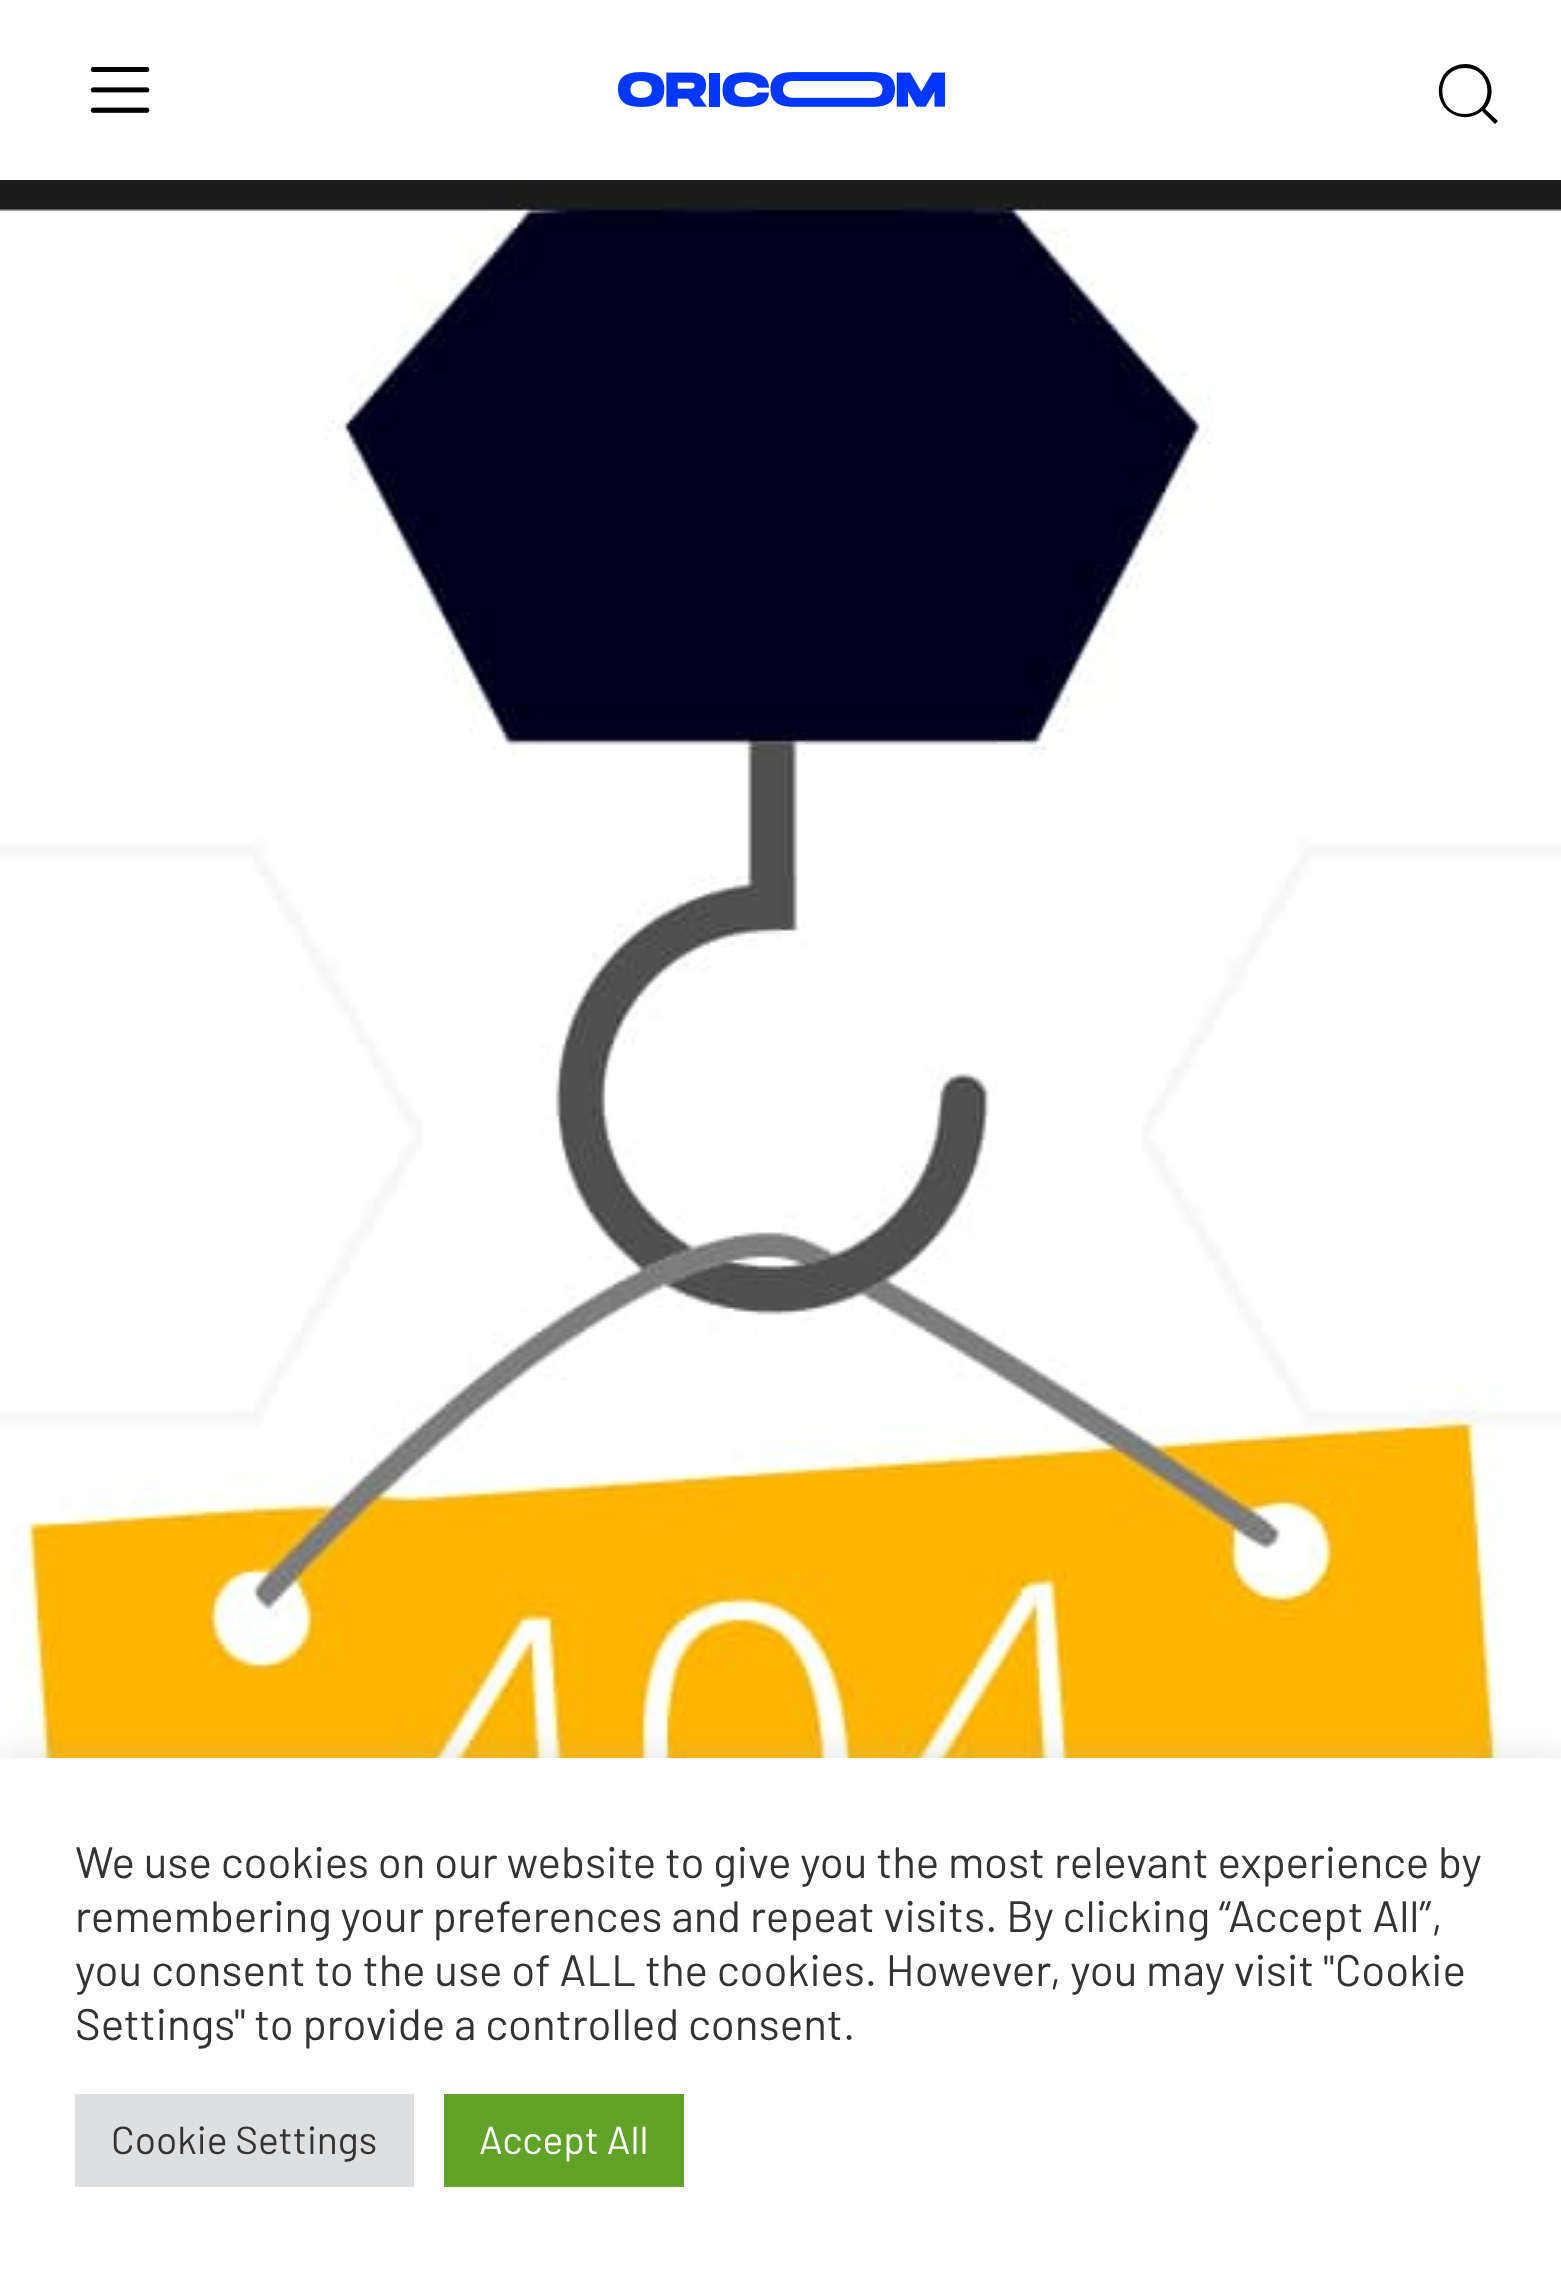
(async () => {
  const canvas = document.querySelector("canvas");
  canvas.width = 1561;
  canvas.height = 2276;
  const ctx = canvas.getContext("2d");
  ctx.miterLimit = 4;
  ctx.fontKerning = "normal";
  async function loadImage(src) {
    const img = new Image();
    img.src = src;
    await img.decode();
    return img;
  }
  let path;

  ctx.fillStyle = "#ffffff";
  ctx.fillRect(0, 0, 1561, 2276);
  ctx.drawImage(await loadImage("img/1.png"), 90, 67, 60, 46);
  ctx.drawImage(await loadImage("img/2.png"), 618, 72, 327, 35);
  ctx.fillStyle = "#000000";
  path = new Path2D("M1465 64C1488 64 1500 92 1485 109L1498 121L1495 124L1482 111C1464 126 1436 112 1439 87C1440 82 1442 76 1446 72C1451 67 1458 64 1465 64ZM1465 68C1435 68 1435 114 1465 114C1495 114 1495 68 1465 68Z");
  ctx.fill(path);
  ctx.drawImage(await loadImage("img/3.png"), 0, 180, 1561, 1578);
  ctx.fillStyle = "rgba(172, 171, 171, 0.3)";
  ctx.filter = "blur(15px)";
  ctx.beginPath();
  ctx.rect(0, 1755, 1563, 519);
  ctx.fill();
  ctx.filter = "none";
  for (const [x, y, w, h, color] of [
    [0, 1758, 1561, 518, "#ffffff"],
    [75, 2094, 339, 93, "#dedfe0"],
    [444, 2094, 240, 93, "#61a229"],
  ]) {
    ctx.fillStyle = color;
    ctx.fillRect(x, y, w, h);
  }
  ctx.font = "44px Barlow";
  ctx.fillStyle = "#333333";
  for (const [text, x, y] of [
    ["We use cookies on our website to give you the most relevant experience by", 75, 1878],
    ["remembering your preferences and repeat visits. By clicking “Accept All”,", 75, 1932],
    ["you consent to the use of ALL the cookies. However, you may visit \"Cookie", 75, 1986],
    ["Settings\" to provide a controlled consent.", 75, 2040],
  ]) {
    ctx.fillText(text, x, y);
  }
  ctx.font = "39px Barlow";
  ctx.fillText("Cookie Settings", 111, 2154);
  ctx.fillStyle = "#ffffff";
  ctx.fillText("Accept All", 479, 2154);
})();
